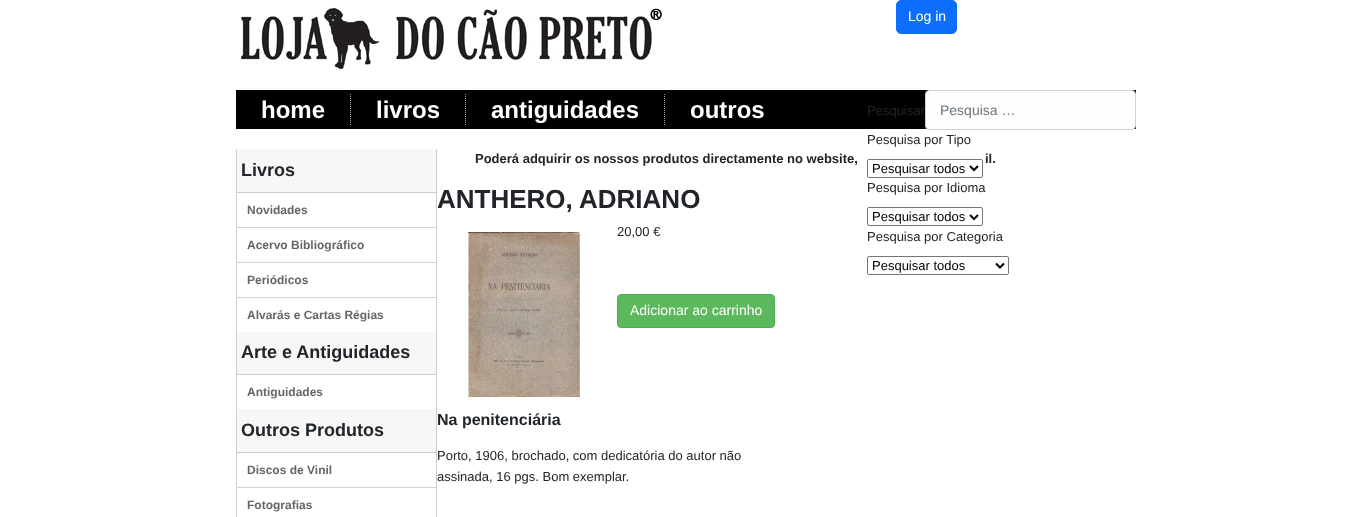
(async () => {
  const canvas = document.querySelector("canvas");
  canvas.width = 1372;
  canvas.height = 517;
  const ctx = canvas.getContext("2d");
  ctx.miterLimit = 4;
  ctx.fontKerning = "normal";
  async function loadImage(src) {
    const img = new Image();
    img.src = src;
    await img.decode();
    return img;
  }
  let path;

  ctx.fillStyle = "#ffffff";
  ctx.fillRect(0, 0, 1372, 517);
  ctx.drawImage(await loadImage("img/1.png"), 241, 7, 421, 63);
  ctx.fillStyle = "#0d6efd";
  ctx.beginPath();
  ctx.roundRect(896.5, 0.5, 60, 33, 4.5);
  ctx.fill();
  ctx.strokeStyle = "#0d6efd";
  ctx.stroke();
  ctx.fillStyle = "#000000";
  ctx.fillRect(236, 90, 900, 39);
  ctx.drawImage(await loadImage("img/2.png"), 350, 94, 1, 31);
  ctx.drawImage(await loadImage("img/2.png"), 465, 94, 1, 31);
  ctx.drawImage(await loadImage("img/2.png"), 664, 94, 1, 31);
  ctx.fillStyle = "#fefefe";
  ctx.beginPath();
  ctx.roundRect(926, 91, 209, 38, 2.5);
  ctx.fill();
  ctx.beginPath();
  ctx.roundRect(925.5, 90.5, 210, 39, 3.5);
  ctx.strokeStyle = "#ced4da";
  ctx.stroke();
  ctx.beginPath();
  ctx.roundRect(867.5, 159.5, 115, 18, 1.5);
  ctx.strokeStyle = "#767676";
  ctx.stroke();
  path = new Path2D("M970 166L974 170L978 166");
  ctx.strokeStyle = "#000000";
  ctx.lineWidth = 2;
  ctx.stroke(path);
  ctx.beginPath();
  ctx.roundRect(867.5, 207.5, 115, 18, 1.5);
  ctx.strokeStyle = "#767676";
  ctx.lineWidth = 1;
  ctx.stroke();
  path = new Path2D("M970 215L974 219L978 215");
  ctx.strokeStyle = "#000000";
  ctx.lineWidth = 2;
  ctx.stroke(path);
  ctx.beginPath();
  ctx.roundRect(867.5, 256.5, 141, 18, 1.5);
  ctx.strokeStyle = "#767676";
  ctx.lineWidth = 1;
  ctx.stroke();
  path = new Path2D("M996 263.5L1000 267.5L1004 263.5");
  ctx.strokeStyle = "#000000";
  ctx.lineWidth = 2;
  ctx.stroke(path);
  ctx.fillStyle = "#cccccc";
  ctx.fillRect(436, 149, 1, 368);
  ctx.fillRect(236, 149, 1, 368);
  ctx.fillStyle = "#f7f7f7";
  ctx.beginPath();
  ctx.roundRect(237, 149, 199, 44, [2.5, 2.5, 0, 0]);
  ctx.fill();
  for (const [x, y, w, h, color] of [
    [237, 192, 199, 1, "#cccccc"],
    [237, 227, 199, 1, "#d4d4d4"],
    [237, 262, 199, 1, "#d4d4d4"],
    [237, 297, 199, 1, "#d4d4d4"],
  ]) {
    ctx.fillStyle = color;
    ctx.fillRect(x, y, w, h);
  }
  ctx.fillStyle = "#f7f7f7";
  ctx.beginPath();
  ctx.roundRect(237, 332, 199, 43, [2.5, 2.5, 0, 0]);
  ctx.fill();
  ctx.fillStyle = "#cccccc";
  ctx.fillRect(237, 374, 199, 1);
  ctx.fillStyle = "#f7f7f7";
  ctx.beginPath();
  ctx.roundRect(237, 409, 199, 44, [2.5, 2.5, 0, 0]);
  ctx.fill();
  ctx.fillStyle = "#cccccc";
  ctx.fillRect(237, 452, 199, 1);
  ctx.fillStyle = "#d4d4d4";
  ctx.fillRect(237, 487, 199, 1);
  ctx.drawImage(await loadImage("img/3.png"), 468, 232, 112, 165);
  ctx.fillStyle = "#5cb85c";
  ctx.beginPath();
  ctx.roundRect(617.5, 294.5, 157, 33, 3.5);
  ctx.fill();
  ctx.strokeStyle = "#4cae4c";
  ctx.lineWidth = 1;
  ctx.stroke();
  ctx.font = "14px Liberation Sans";
  ctx.fillStyle = "#ffffff";
  ctx.fillText("Log in", 908, 21);
  ctx.font = "bold 24px Liberation Sans";
  for (const [text, x, y] of [
    ["home", 261, 118],
    ["livros", 376, 118],
    ["antiguidades", 491, 118],
    ["outros", 690, 118],
  ]) {
    ctx.fillText(text, x, y);
  }
  ctx.font = "13px Liberation Sans";
  ctx.fillStyle = "#212529";
  ctx.fillText("Pesquisar", 867, 115);
  ctx.font = "14px Liberation Sans";
  ctx.fillStyle = "#6c757d";
  ctx.fillText("Pesquisa …", 940, 115);
  ctx.font = "13px Liberation Sans";
  ctx.fillStyle = "#212529";
  ctx.fillText("Pesquisa por Tipo", 867, 144);
  ctx.fillStyle = "#000000";
  ctx.fillText("Pesquisar todos", 872, 173);
  ctx.fillStyle = "#212529";
  ctx.fillText("Pesquisa por Idioma", 867, 192);
  ctx.fillStyle = "#000000";
  ctx.fillText("Pesquisar todos", 872, 221);
  ctx.fillStyle = "#212529";
  ctx.fillText("Pesquisa por Categoria", 867, 241);
  ctx.fillStyle = "#000000";
  ctx.fillText("Pesquisar todos", 872, 270);
  ctx.font = "bold 18px Liberation Sans";
  ctx.fillStyle = "#212529";
  ctx.fillText("Livros", 241, 176);
  ctx.font = "bold 12px Liberation Sans";
  ctx.fillStyle = "#666666";
  for (const [text, x, y] of [
    ["Novidades", 247, 214],
    ["Acervo Bibliográfico", 247, 249],
    ["Periódicos", 247, 284],
    ["Alvarás e Cartas Régias", 247, 319],
  ]) {
    ctx.fillText(text, x, y);
  }
  ctx.font = "bold 18px Liberation Sans";
  ctx.fillStyle = "#212529";
  ctx.fillText("Arte e Antiguidades", 241, 358);
  ctx.font = "bold 12px Liberation Sans";
  ctx.fillStyle = "#666666";
  ctx.fillText("Antiguidades", 247, 396);
  ctx.font = "bold 18px Liberation Sans";
  ctx.fillStyle = "#212529";
  ctx.fillText("Outros Produtos", 241, 436);
  ctx.font = "bold 12px Liberation Sans";
  ctx.fillStyle = "#666666";
  ctx.fillText("Discos de Vinil", 247, 474);
  ctx.fillText("Fotografias", 247, 509);
  ctx.font = "bold 13px Liberation Sans";
  ctx.fillStyle = "#212529";
  ctx.fillText("Poderá adquirir os nossos produtos directamente no website,", 475, 163);
  ctx.fillText("il.", 985, 163);
  ctx.font = "bold 26px Liberation Sans";
  ctx.fillText("ANTHERO, ADRIANO", 437, 208);
  ctx.font = "13px Liberation Sans";
  ctx.fillText("20,00 €", 617, 236);
  ctx.font = "14px Liberation Sans";
  ctx.fillStyle = "#ffffff";
  ctx.fillText("Adicionar ao carrinho", 630, 315);
  ctx.font = "bold 16px Liberation Sans";
  ctx.fillStyle = "#212529";
  ctx.fillText("Na penitenciária", 437, 425);
  ctx.font = "13px Liberation Sans";
  ctx.fillText("Porto, 1906, brochado, com dedicatória do autor não", 437, 460);
  ctx.fillText("assinada, 16 pgs. Bom exemplar.", 437, 481);
})();
